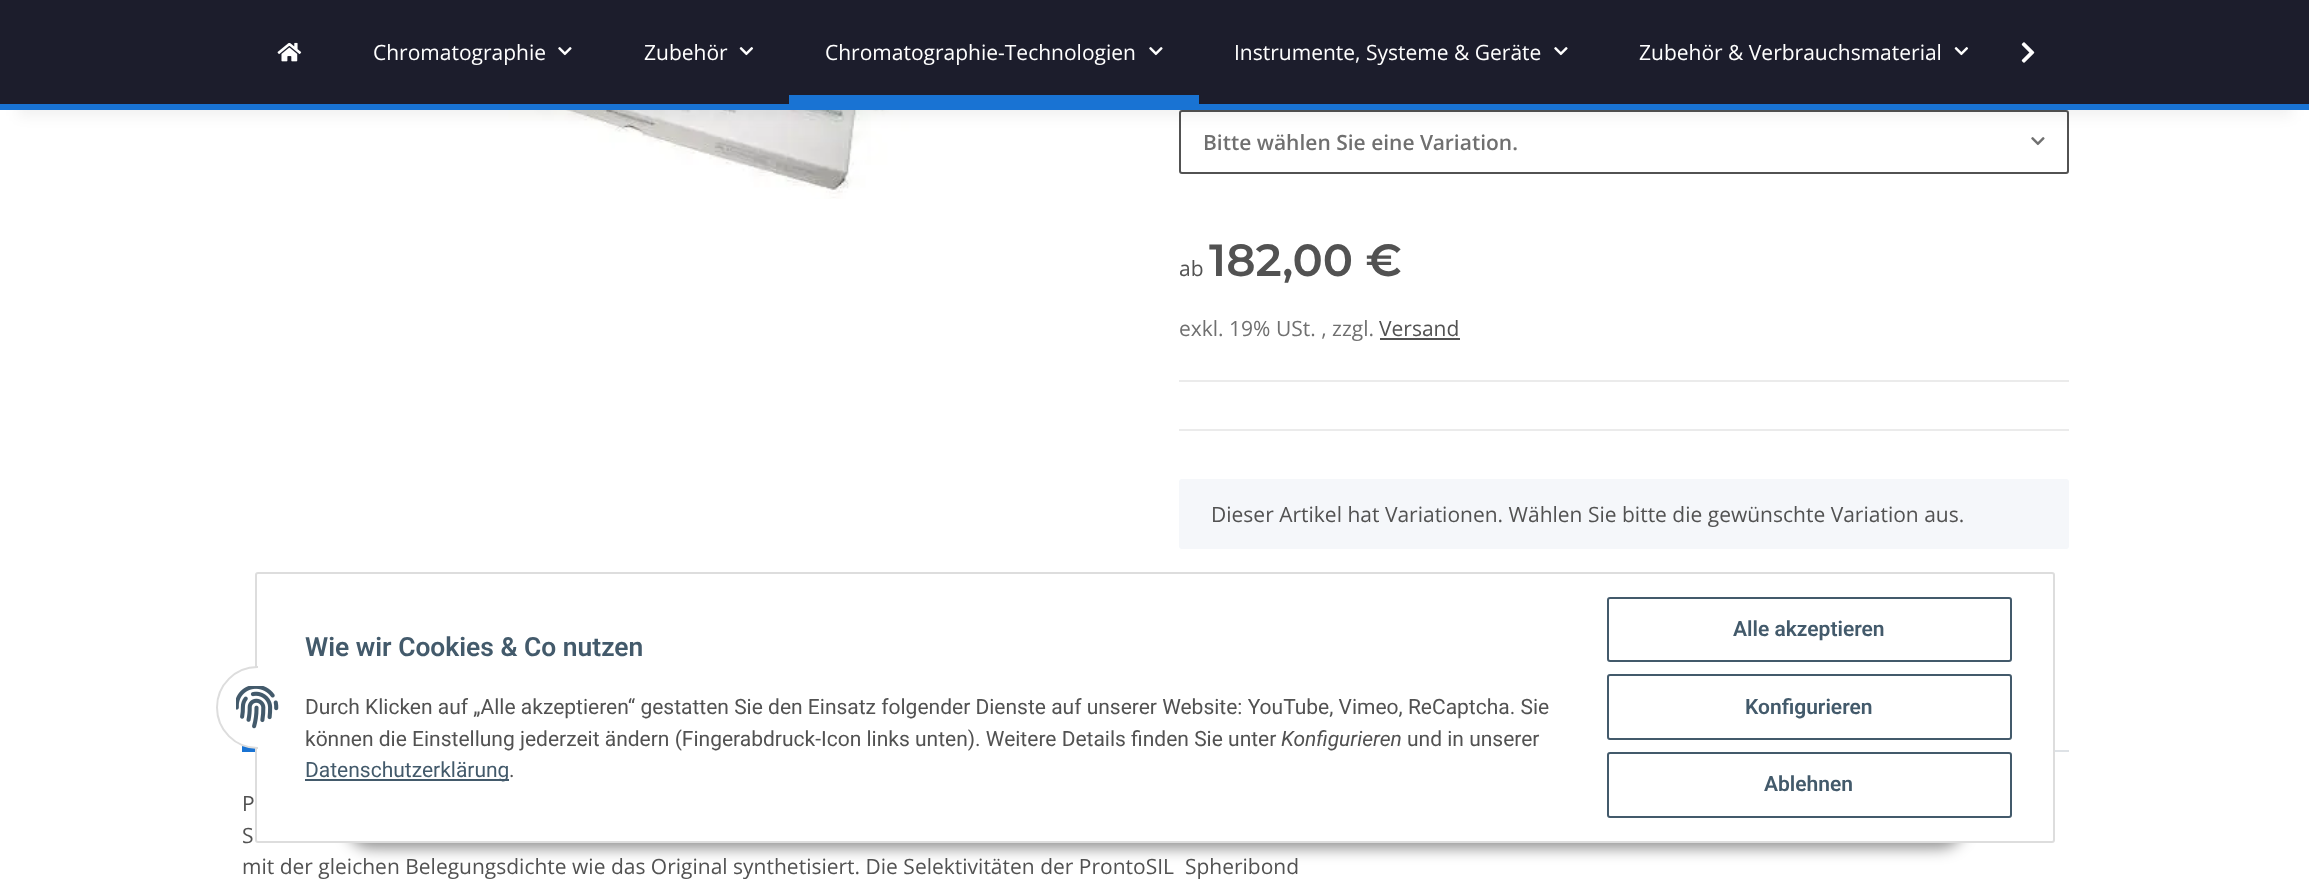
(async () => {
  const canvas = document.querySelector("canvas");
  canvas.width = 2309;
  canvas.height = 891;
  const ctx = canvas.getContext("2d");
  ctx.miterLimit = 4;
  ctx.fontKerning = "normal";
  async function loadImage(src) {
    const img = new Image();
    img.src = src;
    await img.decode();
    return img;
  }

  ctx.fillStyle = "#ffffff";
  ctx.fillRect(0, 0, 2309, 891);
  ctx.drawImage(await loadImage("img/5.png"), 447, 110, 482, 89);
  ctx.beginPath();
  ctx.roundRect(1180, 111, 888, 62, 2);
  ctx.strokeStyle = "#525252";
  ctx.lineWidth = 2;
  ctx.stroke();
  ctx.drawImage(await loadImage("img/6.png"), 2031, 137, 14, 9);
  ctx.fillStyle = "rgba(0, 0, 0, 0.06)";
  ctx.filter = "blur(7px)";
  ctx.beginPath();
  ctx.rect(18, 42, 2274, 74);
  ctx.fill();
  ctx.filter = "none";
  ctx.fillStyle = "#1c1d2c";
  ctx.fillRect(0, 0, 2309, 104);
  ctx.fillStyle = "#1973d3";
  ctx.fillRect(0, 104, 2309, 6);
  ctx.drawImage(await loadImage("img/1.png"), 277, 42, 25, 20);
  ctx.drawImage(await loadImage("img/2.png"), 558, 47, 14, 9);
  ctx.drawImage(await loadImage("img/3.png"), 739, 47, 15, 9);
  ctx.drawImage(await loadImage("img/2.png"), 1149, 47, 14, 9);
  ctx.fillRect(789, 95, 410, 9);
  ctx.drawImage(await loadImage("img/2.png"), 1554, 47, 14, 9);
  ctx.drawImage(await loadImage("img/3.png"), 1954, 47, 15, 9);
  ctx.drawImage(await loadImage("img/4.png"), 2021, 42, 14, 21);
  for (const [x, y, w, h, color] of [
    [1380, 338, 80, 2, "#525252"],
    [1179, 380, 890, 2, "#ebebeb"],
    [1179, 429, 890, 2, "#ebebeb"],
  ]) {
    ctx.fillStyle = color;
    ctx.fillRect(x, y, w, h);
  }
  ctx.fillStyle = "#f5f7fa";
  ctx.beginPath();
  ctx.roundRect(1179, 479, 890, 70, 3);
  ctx.fill();
  ctx.fillStyle = "#dee2e6";
  ctx.fillRect(2055, 750, 14, 2);
  ctx.fillStyle = "#1973d3";
  ctx.fillRect(242, 746, 13, 6);
  ctx.fillStyle = "rgba(0, 0, 0, 0.45)";
  ctx.filter = "blur(7.5px)";
  ctx.beginPath();
  ctx.roundRect(347, 800, 1617, 48, 24);
  ctx.fill();
  ctx.filter = "none";
  ctx.fillStyle = "#ffffff";
  ctx.beginPath();
  ctx.roundRect(256, 573, 1798, 269, 2);
  ctx.fill();
  ctx.strokeStyle = "#dddddd";
  ctx.stroke();
  ctx.beginPath();
  ctx.arc(257.5, 707.5, 40.5, 0, Math.PI * 2);
  ctx.fill();
  ctx.stroke();
  ctx.fillRect(258, 666, 41, 83);
  ctx.drawImage(await loadImage("img/7.png"), 236, 686, 43, 43);
  ctx.fillStyle = "#435a6b";
  ctx.fillRect(305, 779, 204, 2);
  ctx.beginPath();
  ctx.roundRect(1608, 598, 403, 63, 2);
  ctx.strokeStyle = "#435a6b";
  ctx.stroke();
  ctx.beginPath();
  ctx.roundRect(1608, 675, 403, 64, 2);
  ctx.stroke();
  ctx.beginPath();
  ctx.roundRect(1608, 753, 403, 64, 2);
  ctx.stroke();
  ctx.font = "21px Open Sans";
  ctx.fillStyle = "#ffffff";
  for (const [text, x, y] of [
    ["Chromatographie", 373, 60],
    ["Zubehör", 644, 60],
    ["Chromatographie-Technologien", 825, 60],
    ["Instrumente, Systeme & Geräte", 1234, 60],
    ["Zubehör & Verbrauchsmaterial", 1639, 60],
  ]) {
    ctx.fillText(text, x, y);
  }
  ctx.font = "600 21px Open Sans";
  ctx.fillStyle = "#707070";
  ctx.fillText("Bitte wählen Sie eine Variation.", 1203, 150);
  ctx.font = "21px Open Sans";
  ctx.fillStyle = "#525252";
  ctx.fillText("ab", 1179, 276);
  ctx.font = "600 45px Montserrat";
  ctx.fillText("182,00 €", 1209, 276);
  ctx.font = "21px Open Sans";
  ctx.fillStyle = "#707070";
  ctx.fillText("exkl. 19% USt. , zzgl.", 1179, 336);
  ctx.fillStyle = "#525252";
  for (const [text, x, y] of [
    ["Versand", 1379, 336],
    ["Dieser Artikel hat Variationen. Wählen Sie bitte die gewünschte Variation aus.", 1211, 522],
    ["P", 242, 811],
    ["S", 242, 843],
    ["mit der gleichen Belegungsdichte wie das Original synthetisiert. Die Selektivitäten der ProntoSIL  Spheribond", 242, 874],
  ]) {
    ctx.fillText(text, x, y);
  }
  ctx.font = "600 26.4px Roboto";
  ctx.fillStyle = "#435a6b";
  ctx.fillText("Wie wir Cookies & Co nutzen", 305, 656);
  ctx.font = "21px Roboto";
  ctx.fillStyle = "#525252";
  ctx.fillText("Durch Klicken auf „Alle akzeptieren“ gestatten Sie den Einsatz folgender Dienste auf unserer Website: YouTube, Vimeo, ReCaptcha. Sie", 305, 714);
  ctx.fillText("können die Einstellung jederzeit ändern (Fingerabdruck-Icon links unten). Weitere Details finden Sie unter", 305, 746);
  ctx.font = "italic 21px Roboto";
  ctx.fillText("Konfigurieren", 1281, 746);
  ctx.font = "21px Roboto";
  ctx.fillText("und in unserer", 1407, 746);
  ctx.fillStyle = "#435a6b";
  ctx.fillText("Datenschutzerklärung", 305, 777);
  ctx.fillStyle = "#525252";
  ctx.fillText(".", 509, 777);
  ctx.font = "600 21px Roboto";
  ctx.fillStyle = "#435a6b";
  for (const [text, x, y] of [
    ["Alle akzeptieren", 1733, 636],
    ["Konfigurieren", 1745, 714],
    ["Ablehnen", 1764, 791],
  ]) {
    ctx.fillText(text, x, y);
  }
})();
